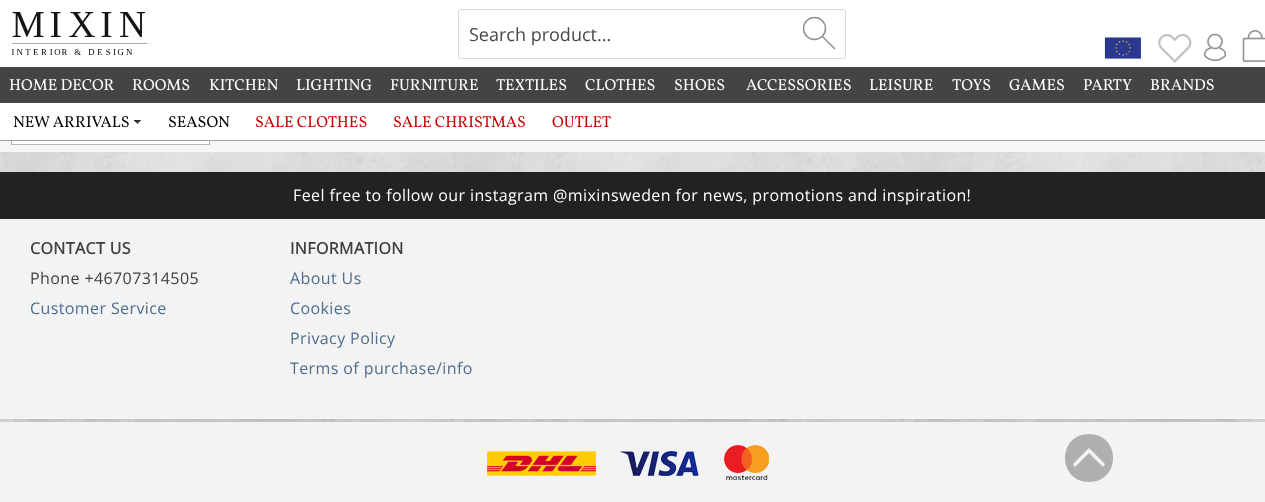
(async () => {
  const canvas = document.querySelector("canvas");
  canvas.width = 1265;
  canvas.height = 502;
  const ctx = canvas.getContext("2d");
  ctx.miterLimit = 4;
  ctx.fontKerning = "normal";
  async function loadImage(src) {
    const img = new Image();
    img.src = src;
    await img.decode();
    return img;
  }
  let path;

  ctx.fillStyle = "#ffffff";
  ctx.fillRect(0, 0, 1265, 502);
  ctx.drawImage(await loadImage("img/1.png"), 0, 419, 1265, 3);
  ctx.fillStyle = "rgba(0, 0, 0, 0.2)";
  ctx.filter = "blur(20px)";
  ctx.beginPath();
  ctx.rect(0, -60, 1265, 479);
  ctx.fill();
  ctx.filter = "none";
  ctx.drawImage(await loadImage("img/2.png"), 0, 152, 1265, 20);
  ctx.fillStyle = "#f6f6f6";
  ctx.fillRect(0, 141, 1265, 11);
  ctx.fillStyle = "#ffffff";
  ctx.fillRect(12, 141, 197, 3);
  ctx.strokeStyle = "#b5b5b5";
  ctx.strokeRect(11.5, -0.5, 198, 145);
  ctx.fillRect(0, 0, 1265, 67);
  ctx.drawImage(await loadImage("img/3.png"), 11, 12, 137, 43);
  ctx.fillStyle = "#dadada";
  path = new Path2D("M461 9H795C797 9 798 10 798 12V56C798 58 797 59 795 59H461C459 59 458 58 458 56V12C458 10 459 9 461 9ZM461 10H795C797 10 798 11 798 12V56C798 57 797 58 795 58H461C460 58 459 57 459 56V12C459 11 460 10 461 10Z");
  ctx.fill(path, "evenodd");
  ctx.fillStyle = "#ffffff";
  ctx.beginPath();
  ctx.roundRect(796, 9, 50, 50, [0, 3, 3, 0]);
  ctx.fill();
  ctx.beginPath();
  ctx.arc(814.5, 28.5, 11, 0, Math.PI * 2);
  ctx.strokeStyle = "#929292";
  ctx.lineWidth = 1.5;
  ctx.stroke();
  path = new Path2D("M822.5 36.5L835 49");
  ctx.stroke(path);
  ctx.fillStyle = "#dadada";
  path = new Path2D("M796 9H843C845 9 846 10 846 12V56C846 58 845 59 843 59H796ZM796 10H843C844 10 845 11 845 12V56C845 57 844 58 843 58H796Z");
  ctx.fill(path, "evenodd");
  ctx.drawImage(await loadImage("img/4.png"), 1104, 37, 37, 22);
  ctx.drawImage(await loadImage("img/5.png"), 1158, 34, 34, 29);
  ctx.drawImage(await loadImage("img/6.png"), 1203, 33, 24, 29);
  ctx.drawImage(await loadImage("img/7.png"), 1242, 30, 23, 32);
  for (const [x, y, w, h, color] of [
    [0, 67, 1265, 36, "#444444"],
    [0, 103, 1265, 37, "#ffffff"],
    [0, 140, 1265, 1, "#a2a2a2"],
  ]) {
    ctx.fillStyle = color;
    ctx.fillRect(x, y, w, h);
  }
  ctx.drawImage(await loadImage("img/8.png"), 134, 120, 7, 4);
  for (const [x, y, w, h, color] of [
    [0, 172, 1265, 47, "#222222"],
    [0, 219, 1265, 200, "#f3f3f3"],
    [0, 422, 1265, 80, "#f3f3f3"],
  ]) {
    ctx.fillStyle = color;
    ctx.fillRect(x, y, w, h);
  }
  ctx.drawImage(await loadImage("img/9.png"), 487, 451, 109, 25);
  ctx.drawImage(await loadImage("img/10.png"), 620, 451, 79, 25);
  ctx.drawImage(await loadImage("img/11.png"), 724, 445, 45, 35);
  ctx.fillStyle = "#afafaf";
  path = new Path2D("M1089 434C1057 434 1057 482 1089 482C1121 482 1121 434 1089 434ZM1103 467L1089 453L1075 467L1073 464L1089 448L1105 464Z");
  ctx.fill(path);
  ctx.font = "18px Open Sans";
  ctx.fillStyle = "#484848";
  ctx.fillText("Search product...", 469, 41);
  ctx.font = "16px Vollkorn";
  ctx.fillStyle = "#ffffff";
  for (const [text, x, y] of [
    ["HOME DECOR", 9, 90],
    ["ROOMS", 132, 90],
    ["KITCHEN", 209, 90],
    ["LIGHTING", 296, 90],
    ["FURNITURE", 390, 90],
    ["TEXTILES", 496, 90],
    ["CLOTHES", 585, 90],
    ["SHOES", 674, 90],
    ["ACCESSORIES", 746, 90],
    ["LEISURE", 869, 90],
    ["TOYS", 952, 90],
    ["GAMES", 1009, 90],
    ["PARTY", 1083, 90],
    ["BRANDS", 1150, 90],
  ]) {
    ctx.fillText(text, x, y);
  }
  ctx.fillStyle = "#000000";
  ctx.fillText("NEW ARRIVALS", 13, 127);
  ctx.fillText("SEASON", 168, 127);
  ctx.fillStyle = "#cc0000";
  for (const [text, x, y] of [
    ["SALE CLOTHES", 255, 127],
    ["SALE CHRISTMAS", 393, 127],
    ["OUTLET", 552, 127],
  ]) {
    ctx.fillText(text, x, y);
  }
  ctx.letterSpacing = "0.4px";
  ctx.font = "16px Open Sans";
  ctx.fillStyle = "#ffffff";
  ctx.fillText("Feel free to follow our instagram @mixinsweden for news, promotions and inspiration!", 293, 201);
  ctx.font = "bold 16px Open Sans";
  ctx.fillStyle = "#404040";
  ctx.fillText("CONTACT US", 30, 254);
  ctx.font = "16px Open Sans";
  ctx.fillText("Phone +46707314505", 30, 284);
  ctx.fillStyle = "#4f6d8f";
  ctx.fillText("Customer Service", 30, 314);
  ctx.font = "bold 16px Open Sans";
  ctx.fillStyle = "#404040";
  ctx.fillText("INFORMATION", 290, 254);
  ctx.font = "16px Open Sans";
  ctx.fillStyle = "#4f6d8f";
  for (const [text, x, y] of [
    ["About Us", 290, 284],
    ["Cookies", 290, 314],
    ["Privacy Policy", 290, 344],
    ["Terms of purchase/info", 290, 374],
  ]) {
    ctx.fillText(text, x, y);
  }
})();
